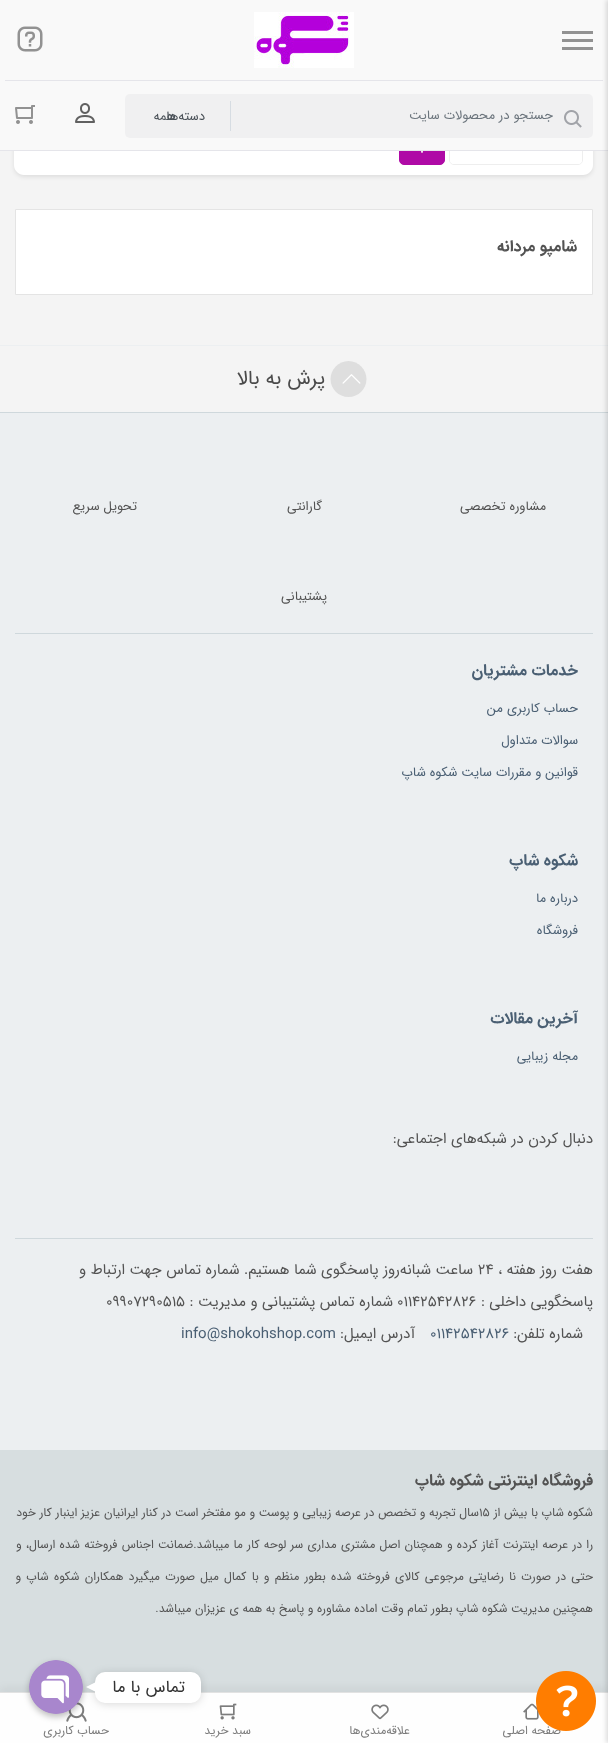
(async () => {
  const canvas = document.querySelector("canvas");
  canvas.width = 608;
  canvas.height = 1743;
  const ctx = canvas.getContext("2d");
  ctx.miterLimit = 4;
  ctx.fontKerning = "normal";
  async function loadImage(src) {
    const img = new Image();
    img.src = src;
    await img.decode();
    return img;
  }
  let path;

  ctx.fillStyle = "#f4f4f4";
  ctx.fillRect(0, 0, 608, 1743);
  ctx.fillStyle = "rgba(0, 0, 0, 0.09)";
  ctx.filter = "blur(2px)";
  ctx.beginPath();
  ctx.roundRect(14, -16, 579, 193, 10);
  ctx.fill();
  ctx.filter = "none";
  ctx.fillStyle = "#ffffff";
  path = new Path2D("M14-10H593V165C593 170.5 588.5 175 583 175H24C18.5 175 14 170.5 14 165Z");
  ctx.fill(path);
  ctx.beginPath();
  ctx.roundRect(449.5, 125.5, 133, 39, 4.5);
  ctx.strokeStyle = "#eeeeee";
  ctx.stroke();
  ctx.beginPath();
  ctx.roundRect(544, 126, 38, 38, [0, 4, 4, 0]);
  ctx.fill();
  ctx.beginPath();
  ctx.roundRect(450, 126, 38, 38, [4, 0, 0, 4]);
  ctx.fill();
  ctx.fillStyle = "#af0aa6";
  ctx.beginPath();
  ctx.roundRect(399.5, 127.5, 45, 37, 4.5);
  ctx.fill();
  ctx.strokeStyle = "#af0aa6";
  ctx.stroke();
  for (const [x, y, w, h, color] of [
    [0, 0, 608, 150, "#f9f9f9"],
    [0, 150, 608, 1, "#e5e5ea"],
    [5, 80, 598, 1, "#e5e5ea"],
    [0, 413, 608, 1037, "#eceff1"],
    [0, 345, 608, 1, "#eceff1"],
    [0, 412, 608, 1, "#cfd8dc"],
    [0, 1450, 608, 242, "#d7dee0"],
  ]) {
    ctx.fillStyle = color;
    ctx.fillRect(x, y, w, h);
  }
  ctx.fillStyle = "rgba(0, 0, 0, 0.05)";
  ctx.filter = "blur(4px)";
  ctx.beginPath();
  ctx.rect(0, 1688, 608, 51);
  ctx.fill();
  ctx.filter = "none";
  ctx.fillStyle = "#fefefe";
  ctx.fillRect(0, 1693, 608, 50);
  ctx.fillStyle = "#e2e2e2";
  ctx.fillRect(201, 1692, 407, 1);
  ctx.fillStyle = "rgba(0, 0, 0, 0.13)";
  ctx.filter = "blur(2px)";
  ctx.beginPath();
  ctx.rect(606, 0, 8, 1743);
  ctx.fill();
  ctx.filter = "none";
  for (const [x, y, w, h, color] of [
    [562, 39, 31, 3, "#929292"],
    [562, 31, 31, 3, "#929292"],
    [562, 47, 31, 3, "#929292"],
  ]) {
    ctx.fillStyle = color;
    ctx.fillRect(x, y, w, h);
  }
  ctx.drawImage(await loadImage("img/1.png"), 254, 12, 100, 56);
  ctx.drawImage(await loadImage("img/2.png"), 17, 26, 26, 26);
  ctx.fillStyle = "#f0f0f1";
  ctx.beginPath();
  ctx.roundRect(125, 94, 468, 44, 5);
  ctx.fill();
  ctx.drawImage(await loadImage("img/3.png"), 564, 110, 18, 18);
  ctx.fillStyle = "#d6dce2";
  ctx.fillRect(230, 101, 1, 30);
  ctx.drawImage(await loadImage("img/4.png"), 75, 103, 20, 20);
  ctx.drawImage(await loadImage("img/5.png"), 15, 105, 20, 19);
  ctx.drawImage(await loadImage("img/6.png"), 421, 151, 2, 2);
  ctx.fillStyle = "#ffffff";
  ctx.beginPath();
  ctx.rect(15.5, 209.5, 577, 85);
  ctx.fill();
  ctx.strokeStyle = "#e4e4e4";
  ctx.stroke();
  ctx.fillStyle = "#dedede";
  path = new Path2D("M330.5 379C330.5 369.5 338.5 361 348.5 361C358.5 361 366.5 369.5 366.5 379C366.5 389 358.5 397 348.5 397C338.5 397 330.5 389 330.5 379Z");
  ctx.fill(path);
  ctx.drawImage(await loadImage("img/7.png"), 342, 374, 19, 10);
  for (const [x, y, w, h, color] of [
    [15, 633, 578, 1, "#cfd8dc"],
    [15, 1238, 578, 1, "#cfd8dc"],
    [0, 1692, 95, 1, "#e2e2e2"],
  ]) {
    ctx.fillStyle = color;
    ctx.fillRect(x, y, w, h);
  }
  ctx.drawImage(await loadImage("img/13.png"), 66, 1702, 21, 20);
  ctx.fillStyle = "rgba(0, 0, 0, 0.25)";
  ctx.filter = "blur(3px)";
  ctx.beginPath();
  ctx.roundRect(29, 1663, 54, 54, 27);
  ctx.fill();
  ctx.filter = "none";
  ctx.drawImage(await loadImage("img/9.png"), 29, 1660, 54, 54);
  ctx.fillStyle = "rgba(0, 0, 0, 0.15)";
  ctx.filter = "blur(4px)";
  ctx.beginPath();
  ctx.roundRect(95, 1673, 106, 31, 10);
  ctx.fill();
  ctx.filter = "none";
  ctx.fillStyle = "#ffffff";
  ctx.beginPath();
  ctx.roundRect(95, 1672, 106, 31, 10);
  ctx.fill();
  path = new Path2D("M96 1682V1692L86 1687Z");
  ctx.fill(path);
  ctx.drawImage(await loadImage("img/10.png"), 523, 1703, 16, 17);
  ctx.drawImage(await loadImage("img/11.png"), 371, 1704, 18, 16);
  ctx.drawImage(await loadImage("img/12.png"), 219, 1703, 18, 17);
  ctx.direction = "rtl";
  ctx.font = "13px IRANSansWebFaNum";
  ctx.fillStyle = "#6c757d";
  ctx.fillText("جستجو در محصولات سایت", 553, 119);
  ctx.fillStyle = "#495057";
  ctx.fillText("همه", 175, 120);
  ctx.fillText("دسته‌ها", 205, 120);
  ctx.font = "bold 16px IRANSansWebFaNum";
  ctx.fillStyle = "#535353";
  ctx.fillText("شامپو مردانه", 577, 251);
  ctx.font = "20px IRANSansWebFaNum";
  ctx.fillStyle = "#4a4a4a";
  ctx.fillText("پرش به بالا", 325, 384);
  ctx.font = "13px IRANSansWebFaNum";
  ctx.fillStyle = "#535353";
  for (const [text, x, y] of [
    ["مشاوره تخصصی", 546, 510],
    ["گارانتی", 322, 510],
    ["تحویل سریع", 137, 510],
    ["پشتیبانی", 327, 600],
  ]) {
    ctx.fillText(text, x, y);
  }
  ctx.font = "bold 16px IRANSansWebFaNum";
  ctx.fillStyle = "#4a5f73";
  ctx.fillText("خدمات مشتریان", 578, 675);
  ctx.font = "13px IRANSansWebFaNum";
  for (const [text, x, y] of [
    ["حساب کاربری من", 578, 712],
    ["سوالات متداول", 578, 744],
    ["قوانین و مقررات سایت شکوه شاپ", 578, 776],
  ]) {
    ctx.fillText(text, x, y);
  }
  ctx.font = "bold 16px IRANSansWebFaNum";
  ctx.fillText("شکوه شاپ", 578, 865);
  ctx.font = "13px IRANSansWebFaNum";
  ctx.fillText("درباره ما", 578, 902);
  ctx.fillText("فروشگاه", 578, 934);
  ctx.font = "bold 16px IRANSansWebFaNum";
  ctx.fillText("آخرین مقالات", 578, 1023);
  ctx.font = "13px IRANSansWebFaNum";
  ctx.fillText("مجله زیبایی", 578, 1060);
  ctx.font = "15px IRANSansWebFaNum";
  ctx.fillStyle = "#535353";
  ctx.fillText("دنبال کردن در شبکه‌های اجتماعی:", 593, 1143);
  ctx.fillText("هفت روز هفته ،", 593, 1274);
  ctx.direction = "ltr";
  ctx.fillText("24", 478, 1274);
  ctx.direction = "rtl";
  ctx.fillText("ساعت شبانه‌روز پاسخگوی شما هستیم. شماره تماس جهت ارتباط و", 473, 1274);
  ctx.fillText("پاسخگویی داخلی :", 593, 1306);
  ctx.direction = "ltr";
  ctx.fillText("01142542826", 397, 1306);
  ctx.direction = "rtl";
  ctx.fillText("شماره تماس پشتیبانی و مدیریت :", 393, 1306);
  ctx.direction = "ltr";
  ctx.fillText("09907290515", 106, 1306);
  ctx.direction = "rtl";
  ctx.fillText("شماره تلفن:", 583, 1338);
  ctx.direction = "ltr";
  ctx.fillStyle = "#4a5f73";
  ctx.fillText("01142542826", 430, 1338);
  ctx.direction = "rtl";
  ctx.fillStyle = "#535353";
  ctx.fillText("آدرس ایمیل:", 415, 1338);
  ctx.direction = "ltr";
  ctx.fillStyle = "#4a5f73";
  ctx.fillText("info@shokohshop.com", 181, 1338);
  ctx.direction = "rtl";
  ctx.font = "bold 16px IRANSansWebFaNum";
  ctx.fillStyle = "#535353";
  ctx.fillText("فروشگاه اینترنتی شکوه شاپ", 593, 1485);
  ctx.font = "12px IRANSansWebFaNum";
  ctx.fillText("شکوه شاپ با بیش از", 593, 1516);
  ctx.direction = "ltr";
  ctx.fillText("15", 479, 1516);
  ctx.direction = "rtl";
  ctx.fillText("سال تجربه و تخصص در عرصه زیبایی و پوست و مو مفتخر است در کنار ایرانیان عزیز اینبار کار خود", 479, 1516);
  ctx.wordSpacing = "0.6px";
  ctx.fillText("را در عرصه اینترنت آغاز کرده و همچنان اصل مشتری مداری سر لوحه کار ما میباشد.ضمانت اجناس فروخته شده ارسال، و", 593, 1548);
  ctx.wordSpacing = "1.6px";
  ctx.fillText("حتی در صورت نا رضایتی مرجوعی کالای فروخته شده بطور منظم و با کمال میل صورت میگیرد همکاران شکوه شاپ و", 593, 1580);
  ctx.wordSpacing = "0px";
  ctx.fillText("همچنین مدیریت شکوه شاپ بطور تمام وقت اماده مشاوره و پاسخ به همه ی عزیزان میباشد.", 593, 1612);
  ctx.font = "17px IRANSansWebFaNum";
  ctx.fillStyle = "#333333";
  ctx.fillText("تماس با ما", 185, 1692);
  ctx.font = "12px IRANSansWebFaNum";
  ctx.fillStyle = "#7c7c7c";
  ctx.fillText("صفحه اصلی", 561, 1734);
  ctx.drawImage(await loadImage("img/8.png"), 536, 1671, 60, 60);
  for (const [text, x, y] of [
    ["علاقه‌مندی‌ها", 410, 1734],
    ["سبد خرید", 251, 1734],
    ["حساب کاربری", 109, 1734],
  ]) {
    ctx.fillText(text, x, y);
  }
})();
